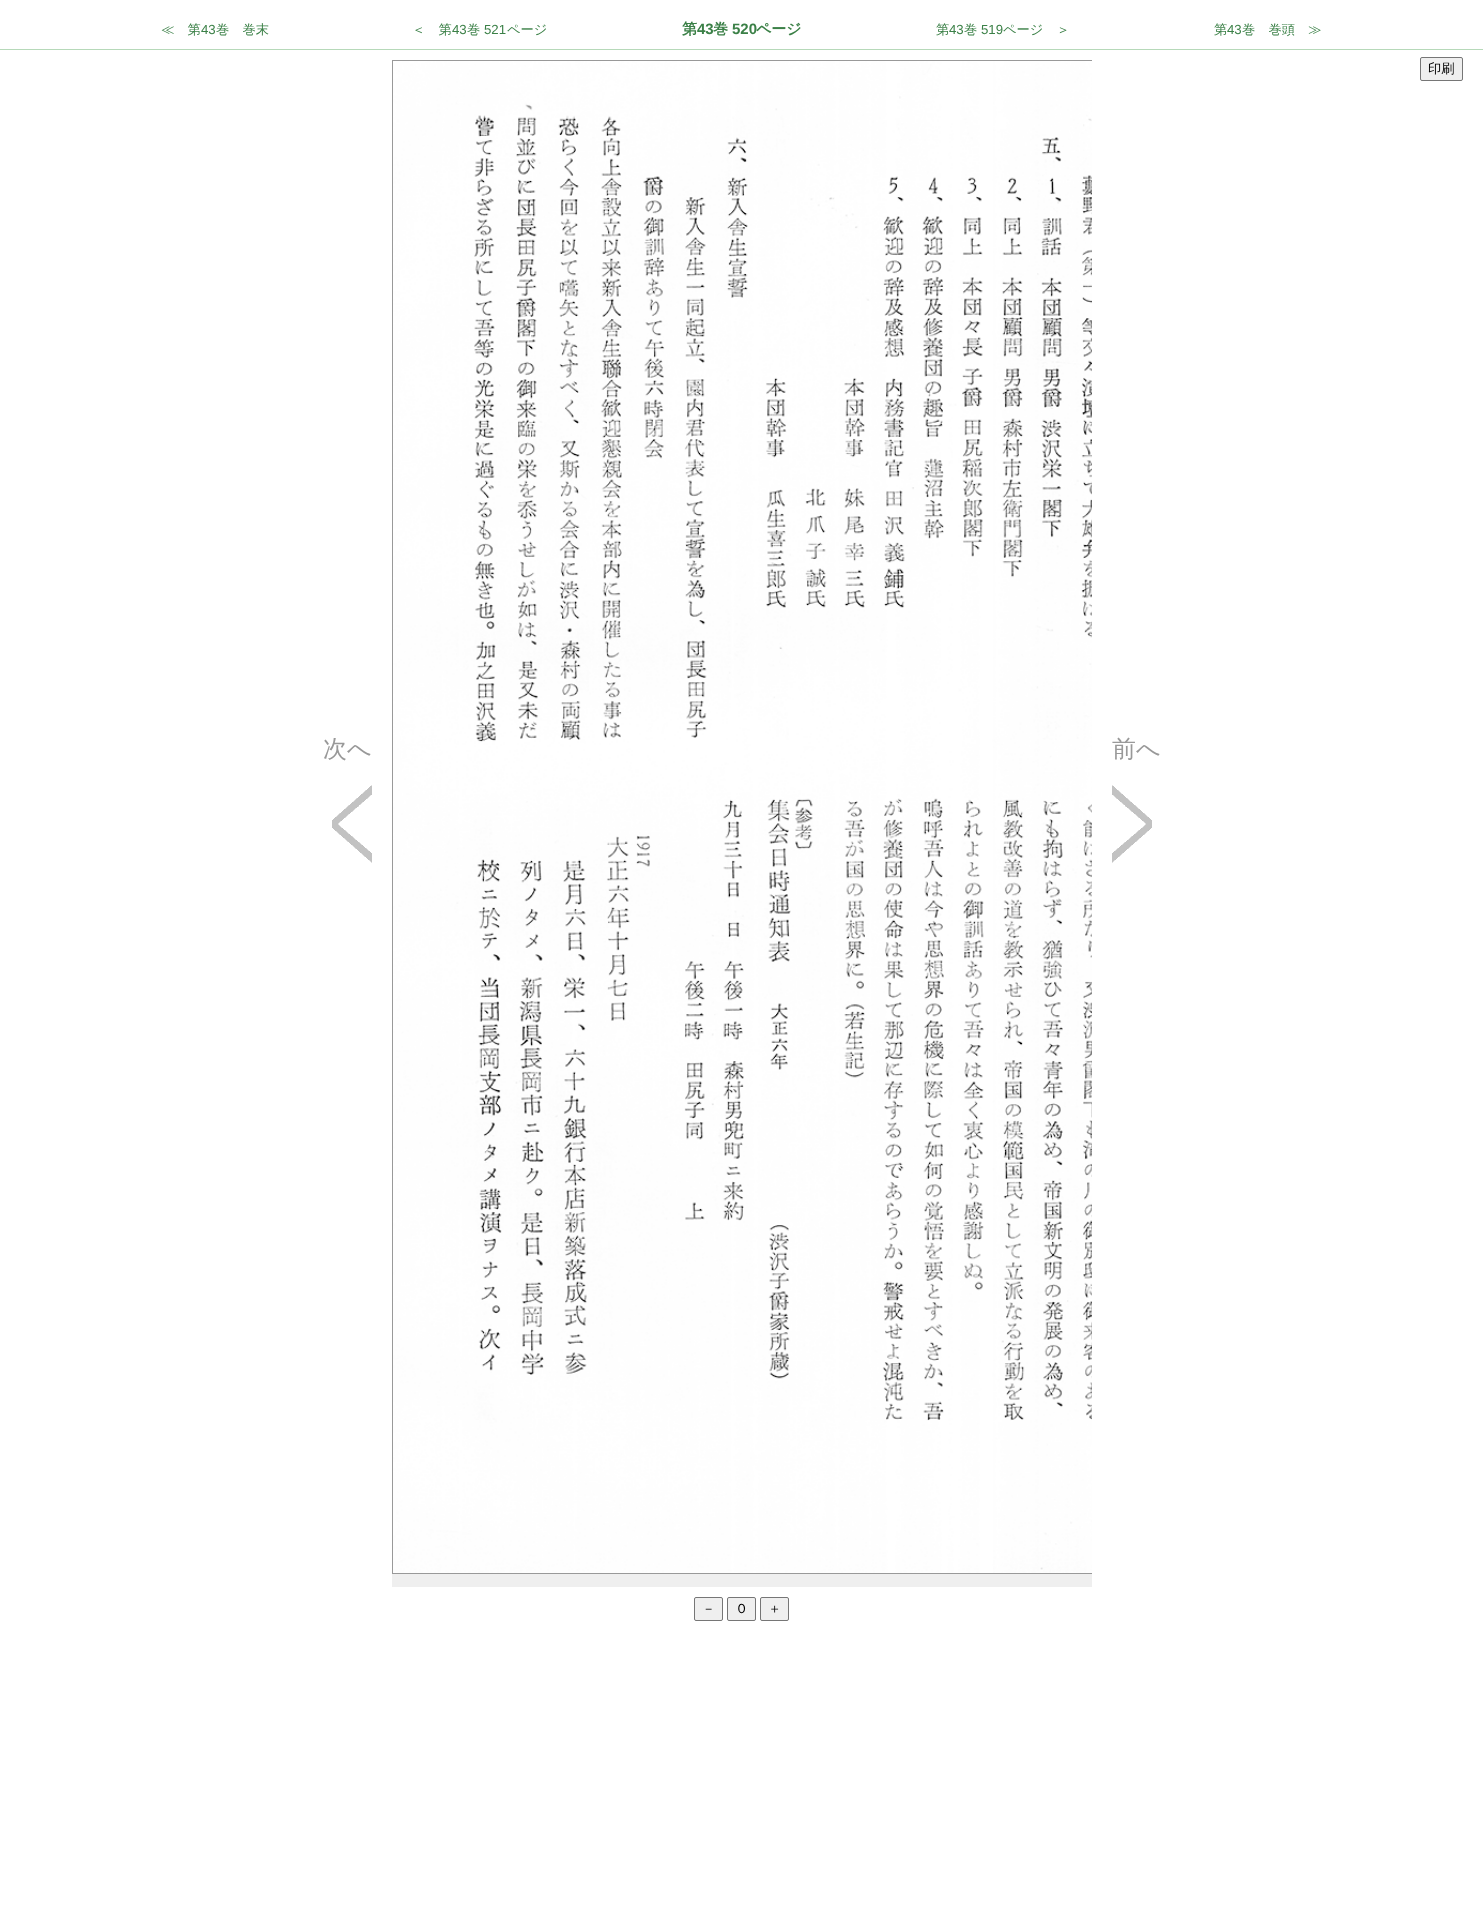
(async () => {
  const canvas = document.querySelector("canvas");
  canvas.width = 1483;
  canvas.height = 1909;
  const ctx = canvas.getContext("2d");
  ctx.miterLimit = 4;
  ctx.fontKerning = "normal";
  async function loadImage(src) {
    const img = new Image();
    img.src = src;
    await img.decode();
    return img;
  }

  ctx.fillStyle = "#ffffff";
  ctx.fillRect(0, 0, 1483, 1909);
  ctx.fillStyle = "#b6d9b9";
  ctx.fillRect(0, 49, 1483, 1);
  ctx.fillStyle = "#efefef";
  ctx.beginPath();
  ctx.roundRect(1420.5, 57.5, 42, 23, 1.5);
  ctx.fill();
  ctx.strokeStyle = "#767676";
  ctx.stroke();
  ctx.drawImage(await loadImage("img/1.png"), 332, 785, 40, 78);
  ctx.fillRect(392, 1574, 700, 13);
  ctx.drawImage(await loadImage("img/3.png"), 1112, 785, 40, 78);
  ctx.save();
  ctx.beginPath();
  ctx.rect(392, 60, 700, 1527);
  ctx.clip();
  ctx.strokeStyle = "#999999";
  ctx.strokeRect(392.5, 60.5, 1074, 1513);
  ctx.restore();
  ctx.drawImage(await loadImage("img/2.png"), 393, 61, 699, 1512);
  ctx.beginPath();
  ctx.roundRect(694.5, 1597.5, 28, 23, 1.5);
  ctx.fill();
  ctx.stroke();
  ctx.beginPath();
  ctx.roundRect(727.5, 1597.5, 28, 23, 1.5);
  ctx.fill();
  ctx.stroke();
  ctx.beginPath();
  ctx.roundRect(760.5, 1597.5, 28, 23, 1.5);
  ctx.fill();
  ctx.stroke();
  ctx.font = "500 13.25px WenQuanYi Zen Hei";
  ctx.fillStyle = "#3b8047";
  ctx.fillText("≪　第", 161, 34);
  ctx.font = "13.25px Liberation Sans";
  ctx.fillText("43", 201, 34);
  ctx.font = "500 13.25px WenQuanYi Zen Hei";
  ctx.fillText("巻　巻末", 216, 34);
  ctx.fillText("＜　第", 412, 34);
  ctx.font = "13.25px Liberation Sans";
  ctx.fillText("43", 452, 34);
  ctx.font = "500 13.25px WenQuanYi Zen Hei";
  ctx.fillText("巻", 467, 34);
  ctx.font = "13.25px Liberation Sans";
  ctx.fillText("521", 484, 34);
  ctx.font = "500 13.25px WenQuanYi Zen Hei";
  ctx.fillText("ページ", 507, 34);
  ctx.font = "bold 15px WenQuanYi Zen Hei";
  ctx.fillText("第", 682, 34);
  ctx.font = "bold 15px Liberation Sans";
  ctx.fillText("43", 697, 34);
  ctx.font = "bold 15px WenQuanYi Zen Hei";
  ctx.fillText("巻", 713, 34);
  ctx.font = "bold 15px Liberation Sans";
  ctx.fillText("520", 732, 34);
  ctx.font = "bold 15px WenQuanYi Zen Hei";
  ctx.fillText("ページ", 756, 34);
  ctx.font = "500 13.25px WenQuanYi Zen Hei";
  ctx.fillText("第", 936, 34);
  ctx.font = "13.25px Liberation Sans";
  ctx.fillText("43", 949, 34);
  ctx.font = "500 13.25px WenQuanYi Zen Hei";
  ctx.fillText("巻", 964, 34);
  ctx.font = "13.25px Liberation Sans";
  ctx.fillText("519", 981, 34);
  ctx.font = "500 13.25px WenQuanYi Zen Hei";
  ctx.fillText("ページ　＞", 1003, 34);
  ctx.fillText("第", 1214, 34);
  ctx.font = "13.25px Liberation Sans";
  ctx.fillText("43", 1227, 34);
  ctx.font = "500 13.25px WenQuanYi Zen Hei";
  ctx.fillText("巻　巻頭　≫", 1242, 34);
  ctx.fillStyle = "#000000";
  ctx.fillText("印刷", 1428, 73);
  ctx.font = "500 24px WenQuanYi Zen Hei";
  ctx.fillStyle = "#999999";
  ctx.fillText("次へ", 323, 757);
  ctx.fillText("前へ", 1112, 757);
  ctx.font = "500 13.25px WenQuanYi Zen Hei";
  ctx.fillStyle = "#000000";
  for (const [text, x, y] of [
    ["－", 702, 1613],
    ["０", 735, 1613],
    ["＋", 768, 1613],
  ]) {
    ctx.fillText(text, x, y);
  }
})();
